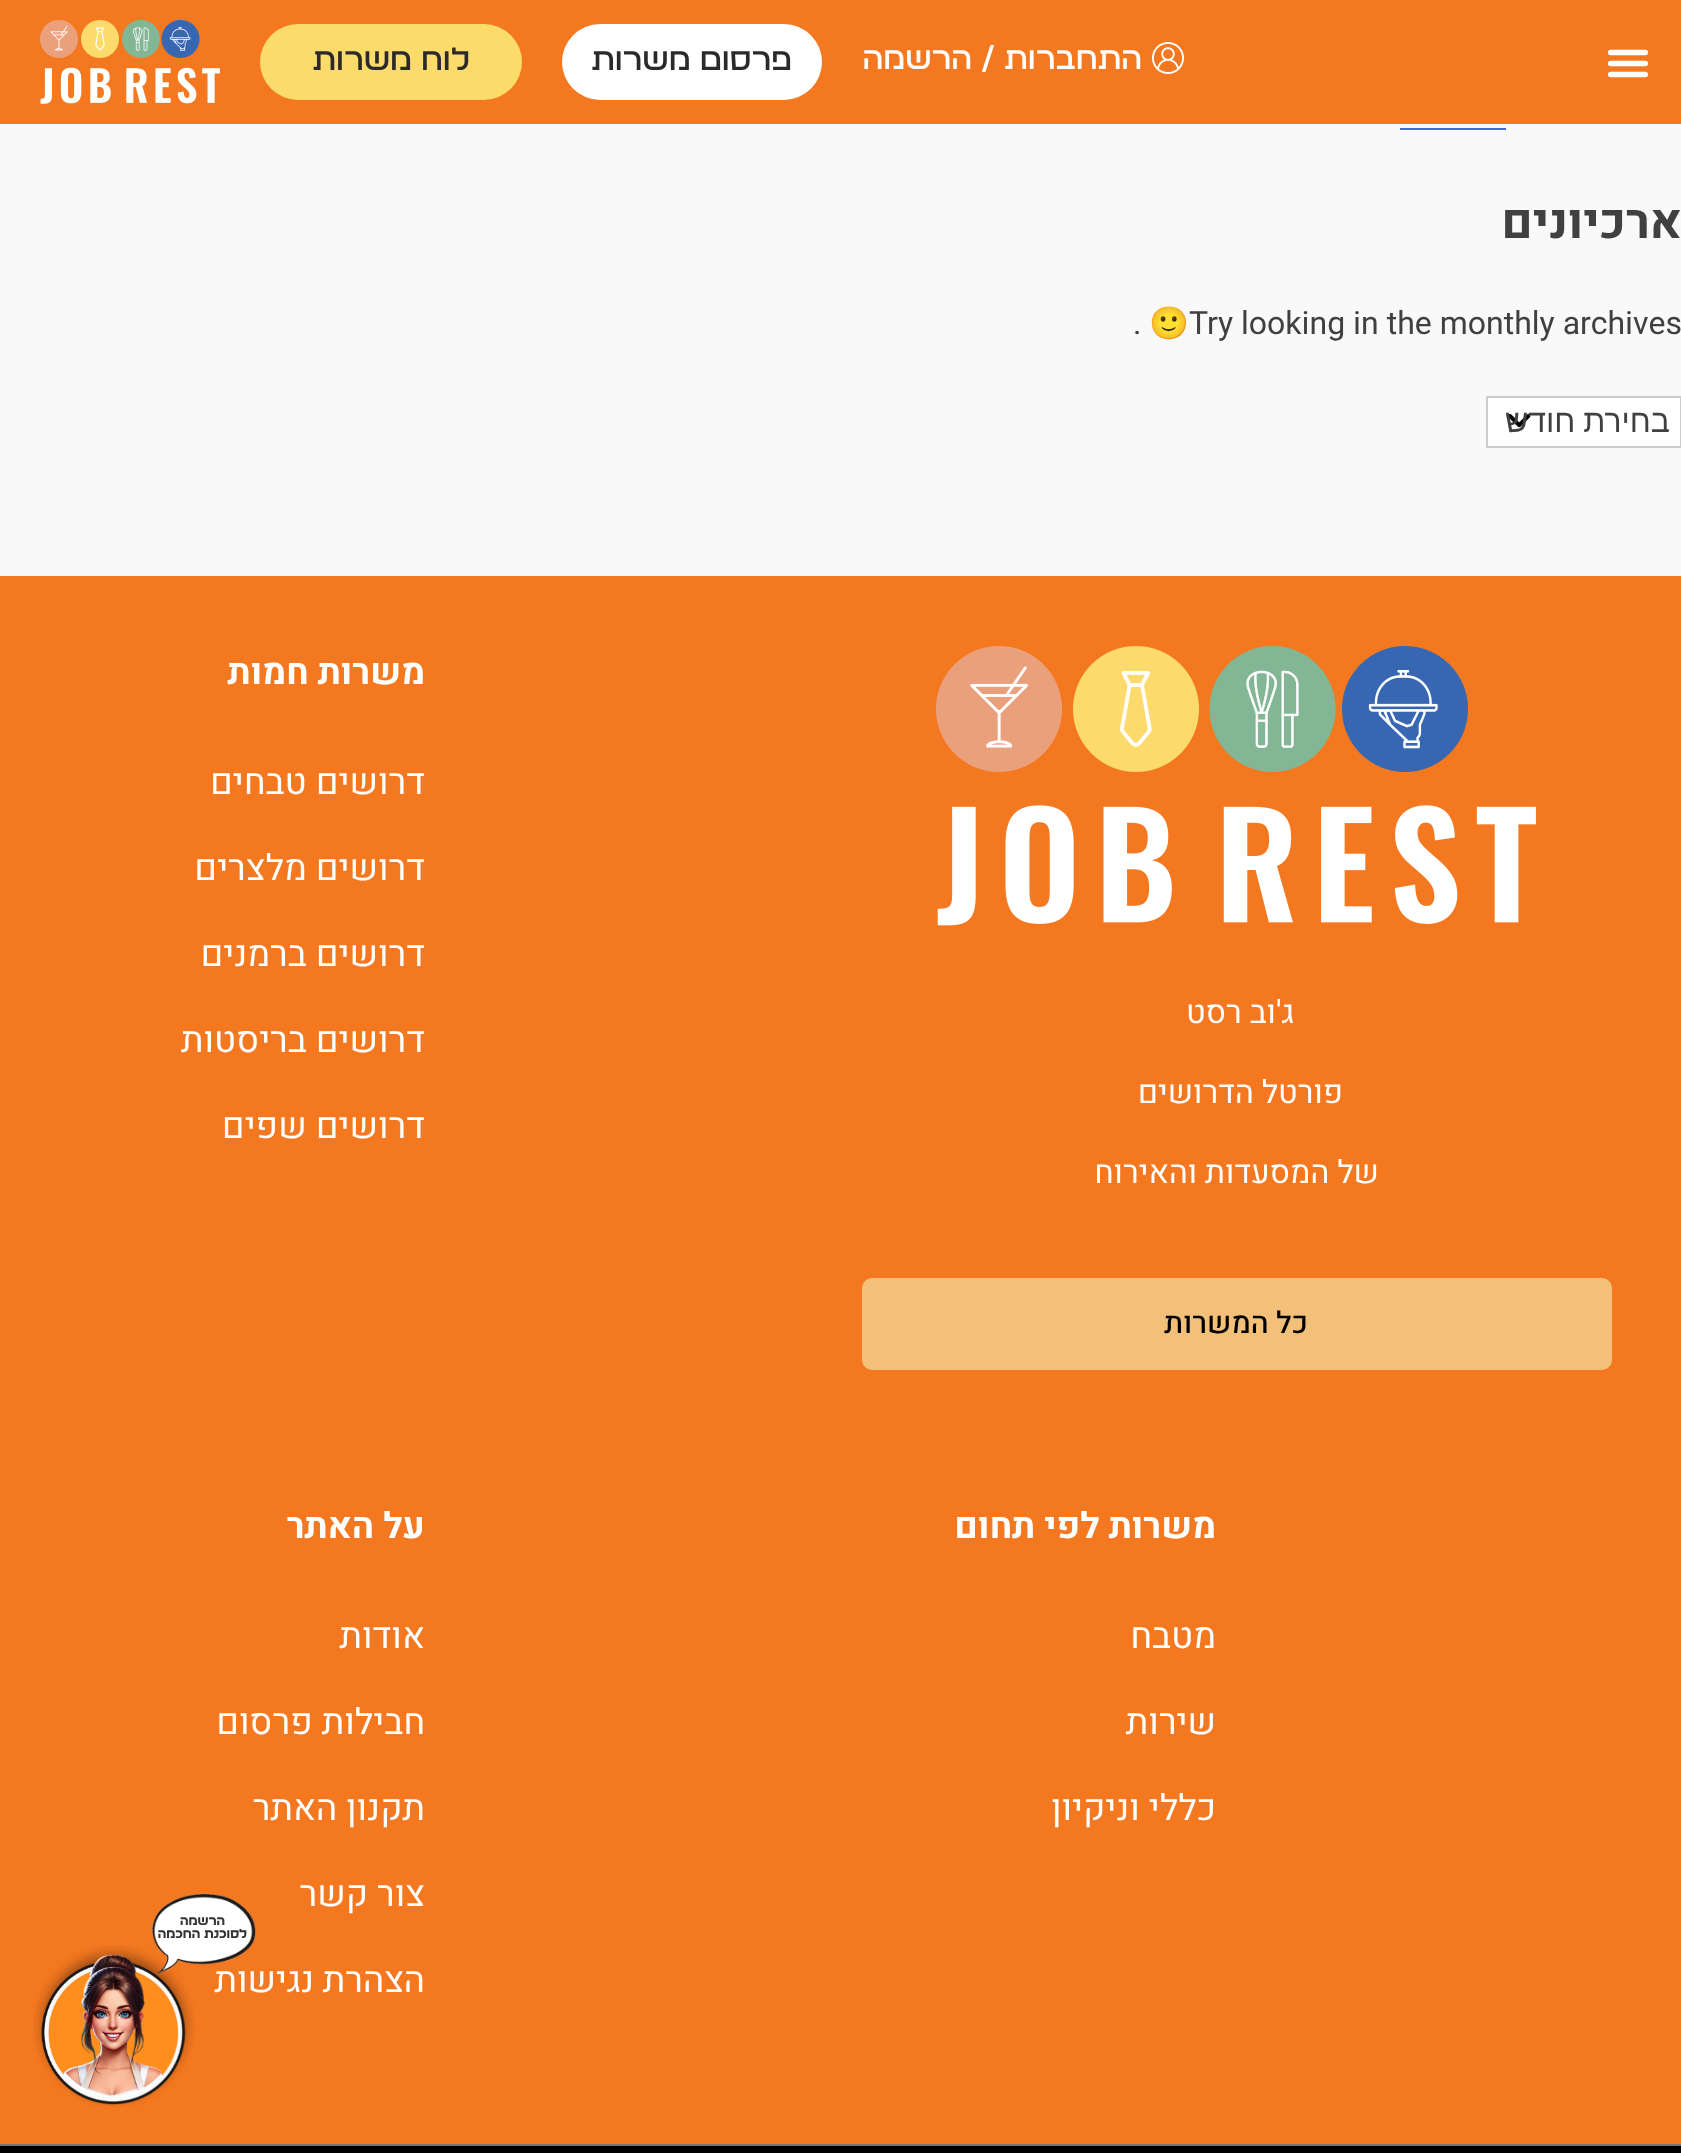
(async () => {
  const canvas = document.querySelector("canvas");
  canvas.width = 1681;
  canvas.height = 2153;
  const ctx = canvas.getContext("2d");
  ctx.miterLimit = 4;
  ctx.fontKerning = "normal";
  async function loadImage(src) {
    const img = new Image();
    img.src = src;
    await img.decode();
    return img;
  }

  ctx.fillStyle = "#f9f9f9";
  ctx.fillRect(0, 0, 1681, 2153);
  ctx.fillStyle = "#f47820";
  ctx.fillRect(0, 0, 1681, 124);
  ctx.drawImage(await loadImage("img/1.png"), 1607, 49, 42, 29);
  ctx.drawImage(await loadImage("img/2.png"), 1152, 42, 32, 32);
  ctx.fillStyle = "#ffffff";
  ctx.beginPath();
  ctx.roundRect(562, 24, 260, 76, 38);
  ctx.fill();
  ctx.fillStyle = "#fbdc6b";
  ctx.beginPath();
  ctx.roundRect(260, 24, 262, 76, 38);
  ctx.fill();
  ctx.drawImage(await loadImage("img/3.png"), 40, 20, 180, 84);
  ctx.fillStyle = "#4169e1";
  ctx.fillRect(1400, 128, 106, 2);
  ctx.fillStyle = "#ffffff";
  ctx.fillRect(1488, 398, 192, 48);
  ctx.drawImage(await loadImage("img/4.png"), 1508, 414, 23, 14);
  ctx.strokeStyle = "#cccccc";
  ctx.lineWidth = 2;
  ctx.strokeRect(1487, 397, 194, 50);
  ctx.fillStyle = "#f47820";
  ctx.fillRect(0, 576, 1681, 1568);
  ctx.fillStyle = "#757575";
  ctx.fillRect(0, 2144, 1681, 2);
  ctx.drawImage(await loadImage("img/5.png"), 936, 646, 600, 280);
  ctx.fillStyle = "#f2c078";
  ctx.beginPath();
  ctx.roundRect(862, 1278, 750, 92, 10);
  ctx.fill();
  ctx.fillStyle = "#000000";
  ctx.fillRect(0, 2146, 1681, 7);
  ctx.drawImage(await loadImage("img/7.png"), 33, 1945, 162, 162);
  ctx.direction = "rtl";
  ctx.font = "500 32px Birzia";
  ctx.fillStyle = "#ffffff";
  ctx.fillText("התחברות / הרשמה", 1142, 69);
  ctx.fillStyle = "#2b292b";
  ctx.fillText("פרסום משרות", 792, 70);
  ctx.fillText("לוח משרות", 470, 70);
  ctx.font = "bold 48px Heebo";
  ctx.fillStyle = "#404040";
  ctx.fillText("ארכיונים", 1682, 238);
  ctx.direction = "ltr";
  ctx.font = "32px Heebo";
  ctx.fillText("Try looking in the monthly archives", 1189, 334);
  ctx.font = "32px Noto Color Emoji";
  ctx.fillText("🙂", 1149, 334);
  ctx.font = "32px Heebo";
  ctx.fillText(".", 1133, 334);
  ctx.wordSpacing = "-1px";
  ctx.direction = "rtl";
  ctx.font = "32px Liberation Sans";
  ctx.fillText("בחירת חודש", 1670, 432);
  ctx.wordSpacing = "0px";
  ctx.font = "32px Heebo";
  ctx.fillStyle = "#ffffff";
  for (const [text, x, y] of [
    ["ג'וב רסט", 1294, 1023],
    ["פורטל הדרושים", 1343, 1103],
    ["של המסעדות והאירוח", 1379, 1183],
  ]) {
    ctx.fillText(text, x, y);
  }
  ctx.font = "500 30px Heebo";
  ctx.fillStyle = "#000000";
  ctx.fillText("כל המשרות", 1308, 1333);
  ctx.font = "bold 36px Heebo";
  ctx.fillStyle = "#ffffff";
  ctx.fillText("משרות חמות", 425, 684);
  ctx.font = "36px Heebo";
  for (const [text, x, y] of [
    ["דרושים טבחים", 425, 794],
    ["דרושים מלצרים", 425, 880],
    ["דרושים ברמנים", 425, 966],
    ["דרושים בריסטות", 425, 1052],
    ["דרושים שפים", 425, 1138],
  ]) {
    ctx.fillText(text, x, y);
  }
  ctx.font = "bold 36px Heebo";
  ctx.fillText("משרות לפי תחום", 1216, 1538);
  ctx.font = "36px Heebo";
  for (const [text, x, y] of [
    ["מטבח", 1216, 1648],
    ["שירות", 1216, 1734],
    ["כללי וניקיון", 1216, 1820],
  ]) {
    ctx.fillText(text, x, y);
  }
  ctx.font = "bold 36px Heebo";
  ctx.fillText("על האתר", 425, 1538);
  ctx.font = "36px Heebo";
  for (const [text, x, y] of [
    ["אודות", 425, 1648],
    ["חבילות פרסום", 425, 1734],
    ["תקנון האתר", 425, 1820],
    ["צור קשר", 425, 1906],
    ["הצהרת נגישות", 425, 1992],
  ]) {
    ctx.fillText(text, x, y);
  }
  ctx.drawImage(await loadImage("img/6.png"), 152, 1894, 104, 80);
  ctx.font = "bold 13px Birzia";
  ctx.fillStyle = "#333333";
  ctx.fillText("הרשמה", 225, 1925);
  ctx.fillText("לסוכנת החכמה", 247, 1938);
})();
